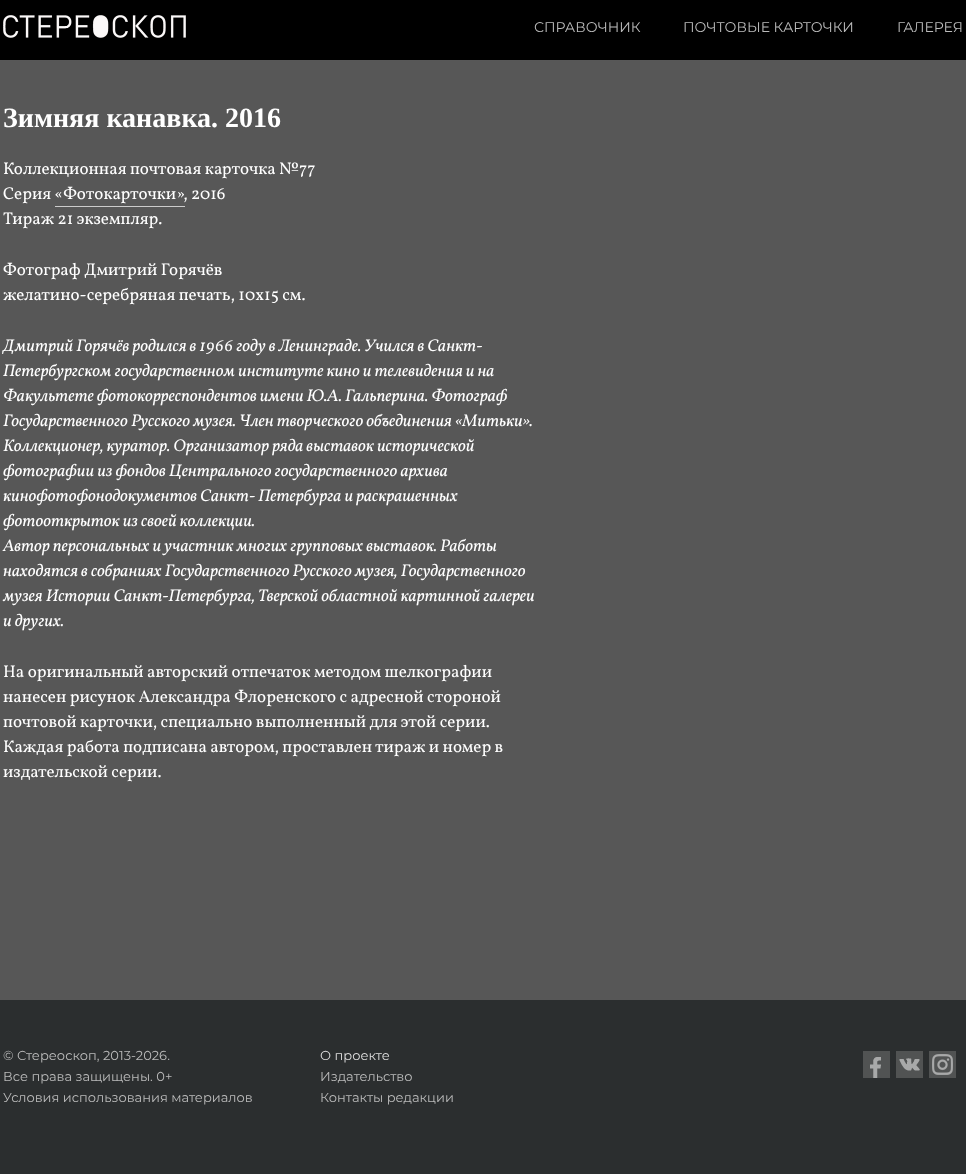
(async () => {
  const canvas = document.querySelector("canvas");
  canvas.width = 966;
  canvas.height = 1174;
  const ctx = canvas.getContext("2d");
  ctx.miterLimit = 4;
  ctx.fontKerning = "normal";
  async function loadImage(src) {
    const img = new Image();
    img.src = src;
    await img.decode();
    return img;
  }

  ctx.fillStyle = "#575757";
  ctx.fillRect(0, 0, 966, 1174);
  ctx.fillStyle = "#000000";
  ctx.fillRect(0, 0, 966, 60);
  ctx.drawImage(await loadImage("img/1.png"), 3, 15, 183, 23);
  for (const [x, y, w, h, color] of [
    [55, 206, 130, 1, "#cccccc"],
    [0, 1000, 966, 174, "#2b2e2f"],
    [863, 1051, 27, 27, "#515353"],
  ]) {
    ctx.fillStyle = color;
    ctx.fillRect(x, y, w, h);
  }
  ctx.drawImage(await loadImage("img/2.png"), 870, 1057, 11, 21);
  ctx.fillRect(896, 1051, 27, 27);
  ctx.drawImage(await loadImage("img/3.png"), 899, 1058, 21, 13);
  ctx.fillRect(929, 1051, 27, 27);
  ctx.drawImage(await loadImage("img/4.png"), 932, 1054, 21, 21);
  ctx.font = "14px Montserrat";
  ctx.fillStyle = "#bbbbbb";
  for (const [text, x, y] of [
    ["СПРАВОЧНИК", 534, 32],
    ["ПОЧТОВЫЕ КАРТОЧКИ", 683, 32],
    ["ГАЛЕРЕЯ", 897, 32],
  ]) {
    ctx.fillText(text, x, y);
  }
  ctx.font = "bold 28px Liberation Serif";
  ctx.fillStyle = "#ffffff";
  ctx.fillText("Зимняя канавка. 2016", 3, 127);
  ctx.font = "17px Vollkorn";
  for (const [text, x, y] of [
    ["Коллекционная почтовая карточка №77", 3, 174],
    ["Серия «Фотокарточки», 2016", 3, 199],
    ["Тираж 21 экземпляр.", 3, 224],
    ["Фотограф Дмитрий Горячёв", 3, 275],
    ["желатино-серебряная печать, 10х15 см.", 3, 300],
  ]) {
    ctx.fillText(text, x, y);
  }
  ctx.font = "italic 17px Vollkorn";
  for (const [text, x, y] of [
    ["Дмитрий Горячёв родился в 1966 году в Ленинграде. Учился в Санкт-", 3, 351],
    ["Петербургском государственном институте кино и телевидения и на", 3, 376],
    ["Факультете фотокорреспондентов имени Ю.А. Гальперина. Фотограф", 3, 401],
    ["Государственного Русского музея. Член творческого объединения «Митьки».", 3, 426],
    ["Коллекционер, куратор. Организатор ряда выставок исторической", 3, 451],
    ["фотографии из фондов Центрального государственного архива", 3, 476],
    ["кинофотофонодокументов Санкт- Петербурга и раскрашенных", 3, 501],
    ["фотооткрыток из своей коллекции.", 3, 526],
    ["Автор персональных и участник многих групповых выставок. Работы", 3, 551],
    ["находятся в собраниях Государственного Русского музея, Государственного", 3, 576],
    ["музея Истории Санкт-Петербурга, Тверской областной картинной галереи", 3, 601],
    ["и других.", 3, 626],
  ]) {
    ctx.fillText(text, x, y);
  }
  ctx.font = "17px Vollkorn";
  for (const [text, x, y] of [
    ["На оригинальный авторский отпечаток методом шелкографии", 3, 677],
    ["нанесен рисунок Александра Флоренского с адресной стороной", 3, 702],
    ["почтовой карточки, специально выполненный для этой серии.", 3, 727],
    ["Каждая работа подписана автором, проставлен тираж и номер в", 3, 752],
    ["издательской серии.", 3, 777],
  ]) {
    ctx.fillText(text, x, y);
  }
  ctx.font = "13px Montserrat";
  ctx.fillStyle = "#bbbbbb";
  for (const [text, x, y] of [
    ["© Стереоскоп, 2013-2026.", 3, 1060],
    ["Все права защищены. 0+", 3, 1081],
    ["Условия использования материалов", 3, 1102],
  ]) {
    ctx.fillText(text, x, y);
  }
  ctx.fillStyle = "#dddddd";
  ctx.fillText("О проекте", 320, 1060);
  ctx.fillStyle = "#bbbbbb";
  ctx.fillText("Издательство", 320, 1081);
  ctx.fillText("Контакты редакции", 320, 1102);
})();
